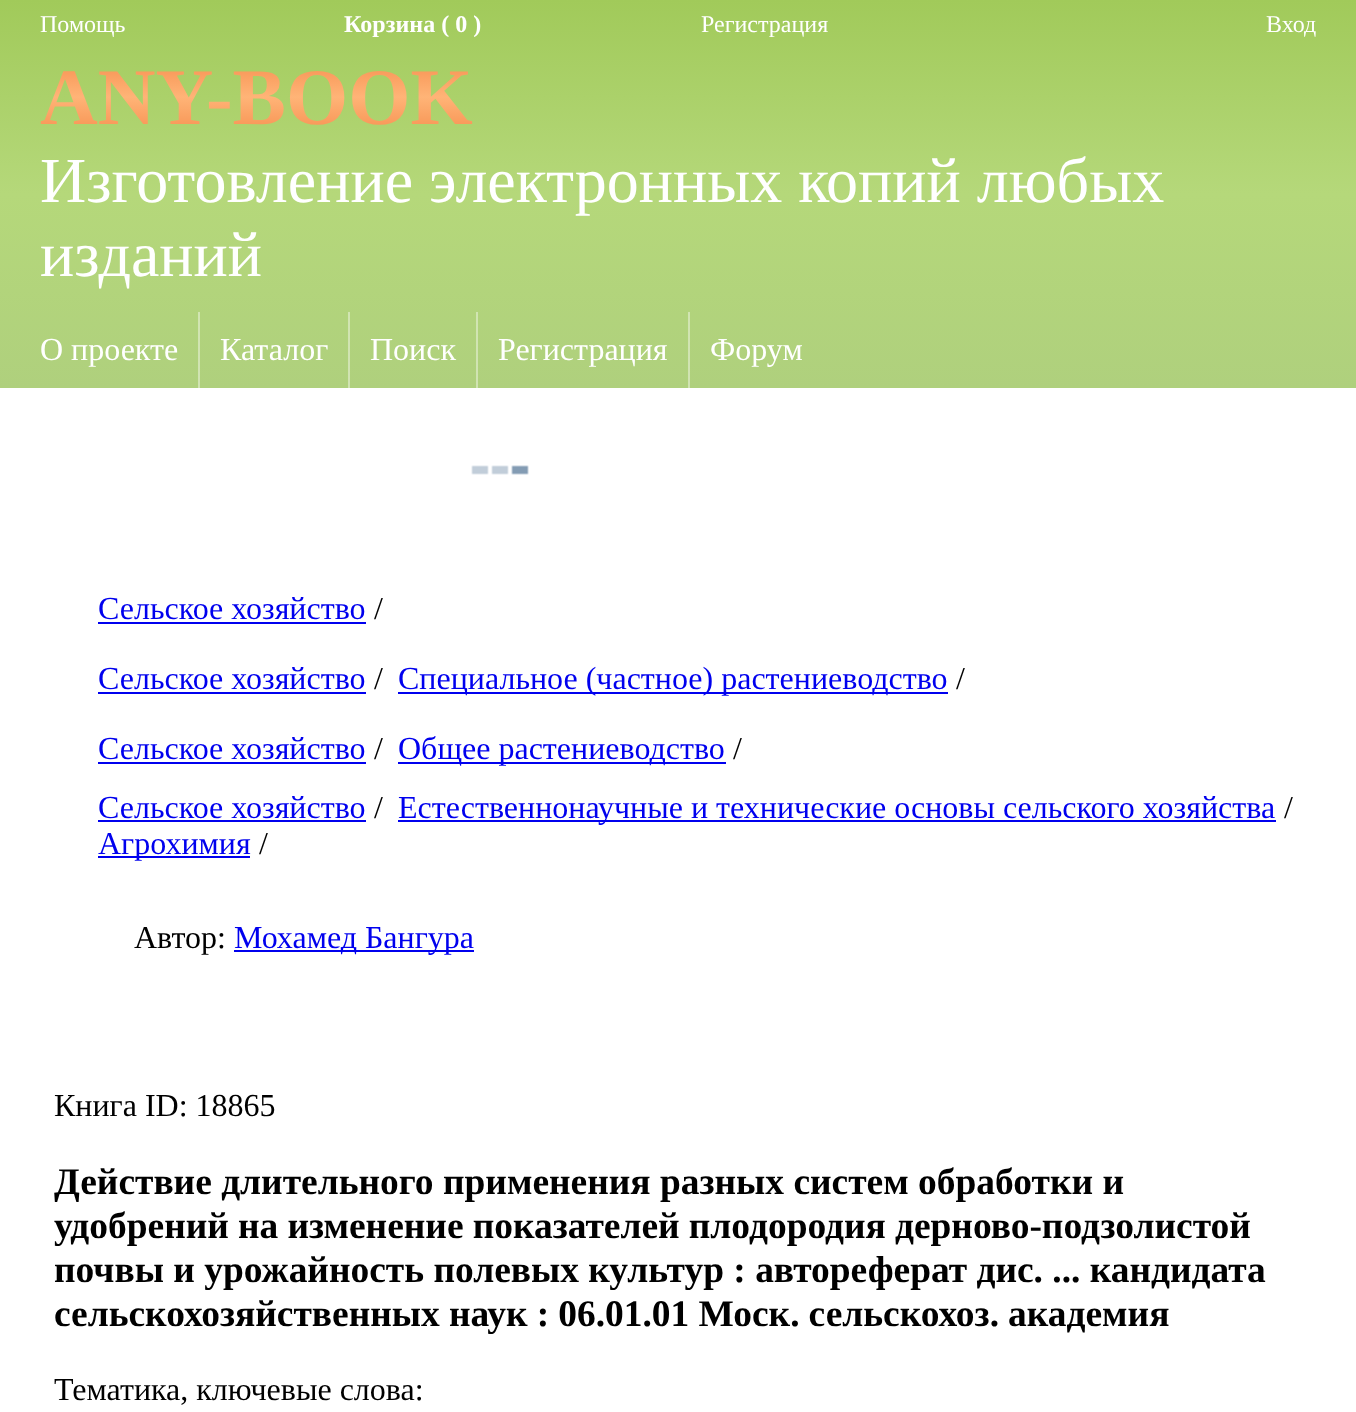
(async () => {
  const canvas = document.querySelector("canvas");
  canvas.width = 1356;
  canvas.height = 1412;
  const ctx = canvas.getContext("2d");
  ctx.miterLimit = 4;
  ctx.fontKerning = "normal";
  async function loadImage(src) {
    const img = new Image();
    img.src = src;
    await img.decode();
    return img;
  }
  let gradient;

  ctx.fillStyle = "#ffffff";
  ctx.fillRect(0, 0, 1356, 1412);
  gradient = ctx.createLinearGradient(678, 388, 678, 0);
  gradient.addColorStop(0, "#afd07d");
  gradient.addColorStop(0.5, "#b5d87a");
  gradient.addColorStop(1, "#a1ca5a");
  ctx.fillStyle = gradient;
  ctx.fillRect(0, 0, 1356, 388);
  gradient = ctx.createLinearGradient(678, 388, 678, 0);
  gradient.addColorStop(0, "#d0e3b2");
  gradient.addColorStop(0.5, "#d3e8b1");
  gradient.addColorStop(1, "#c8e09e");
  ctx.fillStyle = gradient;
  ctx.fillRect(688, 312, 2, 76);
  ctx.fillRect(476, 312, 2, 76);
  ctx.fillRect(348, 312, 2, 76);
  ctx.fillRect(198, 312, 2, 76);
  ctx.drawImage(await loadImage("img/1.png"), 471, 465, 58, 10);
  for (const [x, y, w, h, color] of [
    [98, 622, 268, 2, "#0000ee"],
    [98, 692, 268, 2, "#0000ee"],
    [398, 692, 550, 2, "#0000ee"],
    [98, 762, 268, 2, "#0000ee"],
    [398, 762, 328, 2, "#0000ee"],
    [98, 820, 268, 2, "#0000ee"],
    [398, 820, 878, 2, "#0000ee"],
    [98, 856, 152, 2, "#0000ee"],
    [234, 950, 240, 2, "#0000ee"],
  ]) {
    ctx.fillStyle = color;
    ctx.fillRect(x, y, w, h);
  }
  ctx.font = "24px Liberation Serif";
  ctx.fillStyle = "#ffffff";
  ctx.fillText("Помощь", 40, 32);
  ctx.font = "bold 24px Liberation Serif";
  ctx.fillText("Корзина ( 0 )", 344, 32);
  ctx.font = "24px Liberation Serif";
  ctx.fillText("Регистрация", 701, 32);
  ctx.fillText("Вход", 1266, 32);
  ctx.font = "bold 80px Liberation Serif";
  gradient = ctx.createLinearGradient(678, 144, 678, 50);
  gradient.addColorStop(0, "#f48847");
  gradient.addColorStop(0.5, "#ffb477");
  gradient.addColorStop(1, "#f48847");
  ctx.fillStyle = gradient;
  ctx.fillText("ANY-BOOK", 40, 124);
  ctx.font = "64px Liberation Serif";
  ctx.fillStyle = "#ffffff";
  ctx.fillText("Изготовление электронных копий любых", 40, 202);
  ctx.fillText("изданий", 40, 276);
  ctx.font = "32px Liberation Serif";
  for (const [text, x, y] of [
    ["О проекте", 40, 360],
    ["Каталог", 220, 360],
    ["Поиск", 370, 360],
    ["Регистрация", 498, 360],
    ["Форум", 710, 360],
  ]) {
    ctx.fillText(text, x, y);
  }
  ctx.fillStyle = "#0000ee";
  ctx.fillText("Сельское хозяйство", 98, 619);
  ctx.fillStyle = "#000000";
  ctx.fillText("/", 374, 619);
  ctx.fillStyle = "#0000ee";
  ctx.fillText("Сельское хозяйство", 98, 689);
  ctx.fillStyle = "#000000";
  ctx.fillText("/", 374, 689);
  ctx.fillStyle = "#0000ee";
  ctx.fillText("Специальное (частное) растениеводство", 398, 689);
  ctx.fillStyle = "#000000";
  ctx.fillText("/", 956, 689);
  ctx.fillStyle = "#0000ee";
  ctx.fillText("Сельское хозяйство", 98, 759);
  ctx.fillStyle = "#000000";
  ctx.fillText("/", 374, 759);
  ctx.fillStyle = "#0000ee";
  ctx.fillText("Общее растениеводство", 398, 759);
  ctx.fillStyle = "#000000";
  ctx.fillText("/", 733, 759);
  ctx.fillStyle = "#0000ee";
  ctx.fillText("Сельское хозяйство", 98, 818);
  ctx.fillStyle = "#000000";
  ctx.fillText("/", 374, 818);
  ctx.fillStyle = "#0000ee";
  ctx.fillText("Естественнонаучные и технические основы сельского хозяйства", 398, 818);
  ctx.fillStyle = "#000000";
  ctx.fillText("/", 1284, 818);
  ctx.fillStyle = "#0000ee";
  ctx.fillText("Агрохимия", 98, 854);
  ctx.fillStyle = "#000000";
  ctx.fillText("/", 259, 854);
  ctx.fillText("Автор:", 134, 948);
  ctx.fillStyle = "#0000ee";
  ctx.fillText("Мохамед Бангура", 234, 948);
  ctx.fillStyle = "#000000";
  ctx.fillText("Книга ID: 18865", 54, 1116);
  ctx.font = "bold 37.45px Liberation Serif";
  ctx.fillText("Действие длительного применения разных систем обработки и", 54, 1194);
  ctx.wordSpacing = "-0.25px";
  ctx.fillText("удобрений на изменение показателей плодородия дерново-подзолистой", 54, 1238);
  ctx.wordSpacing = "0px";
  ctx.fillText("почвы и урожайность полевых культур : автореферат дис. ... кандидата", 54, 1282);
  ctx.wordSpacing = "-0.25px";
  ctx.fillText("сельскохозяйственных наук : 06.01.01 Моск. сельскохоз. академия", 54, 1326);
  ctx.wordSpacing = "0px";
  ctx.font = "32px Liberation Serif";
  ctx.fillText("Тематика, ключевые слова:", 54, 1400);
})();
